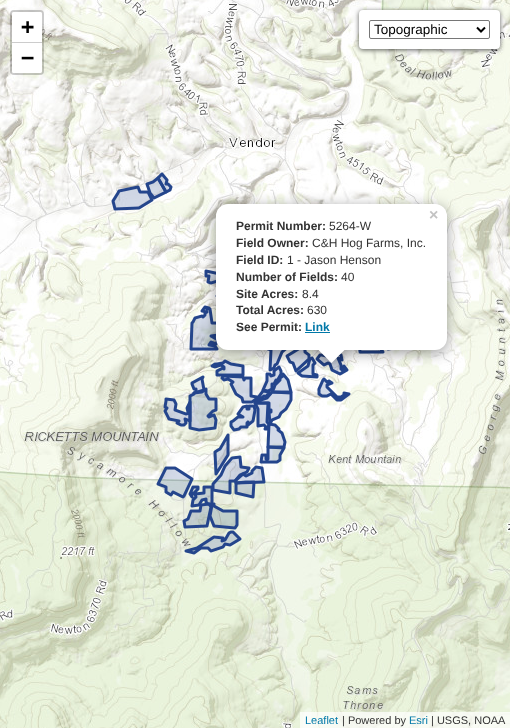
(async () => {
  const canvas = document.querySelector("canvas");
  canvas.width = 510;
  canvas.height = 728;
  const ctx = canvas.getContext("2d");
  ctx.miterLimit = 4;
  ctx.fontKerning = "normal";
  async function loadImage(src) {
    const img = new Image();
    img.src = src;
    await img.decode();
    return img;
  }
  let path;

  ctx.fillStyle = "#ffffff";
  ctx.fillRect(0, 0, 510, 728);
  ctx.drawImage(await loadImage("img/1.png"), 0, 0, 231, 55);
  ctx.drawImage(await loadImage("img/4.png"), 0, 55, 231, 256);
  ctx.beginPath();
  ctx.roundRect(11, 11, 32, 63, 3);
  ctx.strokeStyle = "rgba(0, 0, 0, 0.2)";
  ctx.lineWidth = 2;
  ctx.stroke();
  ctx.beginPath();
  ctx.roundRect(12, 12, 30, 31, [2, 2, 0, 0]);
  ctx.fill();
  ctx.fillStyle = "#cccccc";
  ctx.fillRect(12, 42, 30, 1);
  ctx.fillStyle = "#ffffff";
  ctx.beginPath();
  ctx.roundRect(12, 43, 30, 30, [0, 0, 2, 2]);
  ctx.fill();
  ctx.drawImage(await loadImage("img/11.png"), 231, 567, 256, 161);
  ctx.drawImage(await loadImage("img/12.png"), 487, 567, 23, 161);
  ctx.fillStyle = "rgba(255, 255, 255, 0.7)";
  ctx.fillRect(300, 712, 210, 16);
  ctx.drawImage(await loadImage("img/2.png"), 231, 0, 256, 55);
  ctx.drawImage(await loadImage("img/3.png"), 487, 0, 23, 55);
  ctx.drawImage(await loadImage("img/5.png"), 231, 55, 256, 256);
  ctx.drawImage(await loadImage("img/6.png"), 487, 55, 23, 256);
  ctx.drawImage(await loadImage("img/7.png"), 0, 311, 231, 256);
  ctx.drawImage(await loadImage("img/8.png"), 231, 311, 256, 256);
  ctx.drawImage(await loadImage("img/9.png"), 487, 311, 23, 256);
  ctx.drawImage(await loadImage("img/10.png"), 0, 567, 231, 161);
  ctx.drawImage(await loadImage("img/13.png"), 111, 172, 281, 383);
  ctx.fillStyle = "rgba(0, 0, 0, 0.4)";
  ctx.filter = "blur(7px)";
  ctx.beginPath();
  ctx.roundRect(216, 207, 231, 146, 12);
  ctx.fill();
  ctx.filter = "none";
  ctx.fillStyle = "#ffffff";
  ctx.beginPath();
  ctx.roundRect(216, 204, 231, 146, 12);
  ctx.fill();
  ctx.fillStyle = "#0078a8";
  ctx.fillRect(305, 332, 25, 1);
  ctx.save();
  ctx.beginPath();
  ctx.rect(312, 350, 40, 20);
  ctx.clip();
  ctx.fillStyle = "rgba(0, 0, 0, 0.4)";
  ctx.filter = "blur(7px)";
  ctx.beginPath();
  ctx.rect(322, 343, 19, 19);
  ctx.fill();
  ctx.filter = "none";
  ctx.restore();
  ctx.save();
  ctx.beginPath();
  ctx.rect(312, 350, 40, 20);
  ctx.clip();
  ctx.fillStyle = "#ffffff";
  path = new Path2D("M331.5 336L345 349.5L331.5 363L318 349.5Z");
  ctx.fill(path);
  ctx.restore();
  ctx.fillStyle = "rgba(0, 0, 0, 0.65)";
  ctx.filter = "blur(2.5px)";
  ctx.beginPath();
  ctx.roundRect(359, 11, 141, 39, 4);
  ctx.fill();
  ctx.filter = "none";
  ctx.fillStyle = "#ffffff";
  ctx.beginPath();
  ctx.roundRect(359, 10, 141, 39, 4);
  ctx.fill();
  ctx.beginPath();
  ctx.roundRect(369.5, 20.5, 120, 18, 1.5);
  ctx.strokeStyle = "#767676";
  ctx.lineWidth = 1;
  ctx.stroke();
  path = new Path2D("M477 27.5L481 31.5L485 27.5");
  ctx.strokeStyle = "#000000";
  ctx.lineWidth = 2;
  ctx.stroke(path);
  ctx.font = "bold 22px DejaVu Sans Mono";
  ctx.fillStyle = "#000000";
  ctx.fillText("+", 21, 34);
  ctx.fillText("−", 21, 65);
  ctx.font = "11px Liberation Sans";
  ctx.fillStyle = "#0078a8";
  ctx.fillText("Leaflet", 305, 724);
  ctx.fillStyle = "#333333";
  ctx.fillText("| Powered by", 342, 724);
  ctx.fillStyle = "#0078a8";
  ctx.fillText("Esri", 409, 724);
  ctx.fillStyle = "#333333";
  ctx.fillText("| USGS, NOAA", 431, 724);
  ctx.font = "bold 16px Liberation Sans";
  ctx.fillStyle = "#c3c3c3";
  ctx.fillText("×", 429, 220);
  ctx.font = "bold 12px Liberation Sans";
  ctx.fillStyle = "#333333";
  ctx.fillText("Permit Number:", 236, 230);
  ctx.font = "12px Liberation Sans";
  ctx.fillText("5264-W", 329, 230);
  ctx.font = "bold 12px Liberation Sans";
  ctx.fillText("Field Owner:", 236, 247);
  ctx.font = "12px Liberation Sans";
  ctx.fillText("C&H Hog Farms, Inc.", 312, 247);
  ctx.font = "bold 12px Liberation Sans";
  ctx.fillText("Field ID:", 236, 264);
  ctx.font = "12px Liberation Sans";
  ctx.fillText("1 - Jason Henson", 287, 264);
  ctx.font = "bold 12px Liberation Sans";
  ctx.fillText("Number of Fields:", 236, 281);
  ctx.font = "12px Liberation Sans";
  ctx.fillText("40", 341, 281);
  ctx.font = "bold 12px Liberation Sans";
  ctx.fillText("Site Acres:", 236, 298);
  ctx.font = "12px Liberation Sans";
  ctx.fillText("8.4", 302, 298);
  ctx.font = "bold 12px Liberation Sans";
  ctx.fillText("Total Acres:", 236, 314);
  ctx.font = "12px Liberation Sans";
  ctx.fillText("630", 307, 314);
  ctx.font = "bold 12px Liberation Sans";
  ctx.fillText("See Permit:", 236, 331);
  ctx.fillStyle = "#0078a8";
  ctx.fillText("Link", 305, 331);
  ctx.font = "13.5px Liberation Sans";
  ctx.fillStyle = "#000000";
  ctx.fillText("Topographic", 374, 34);
})();
